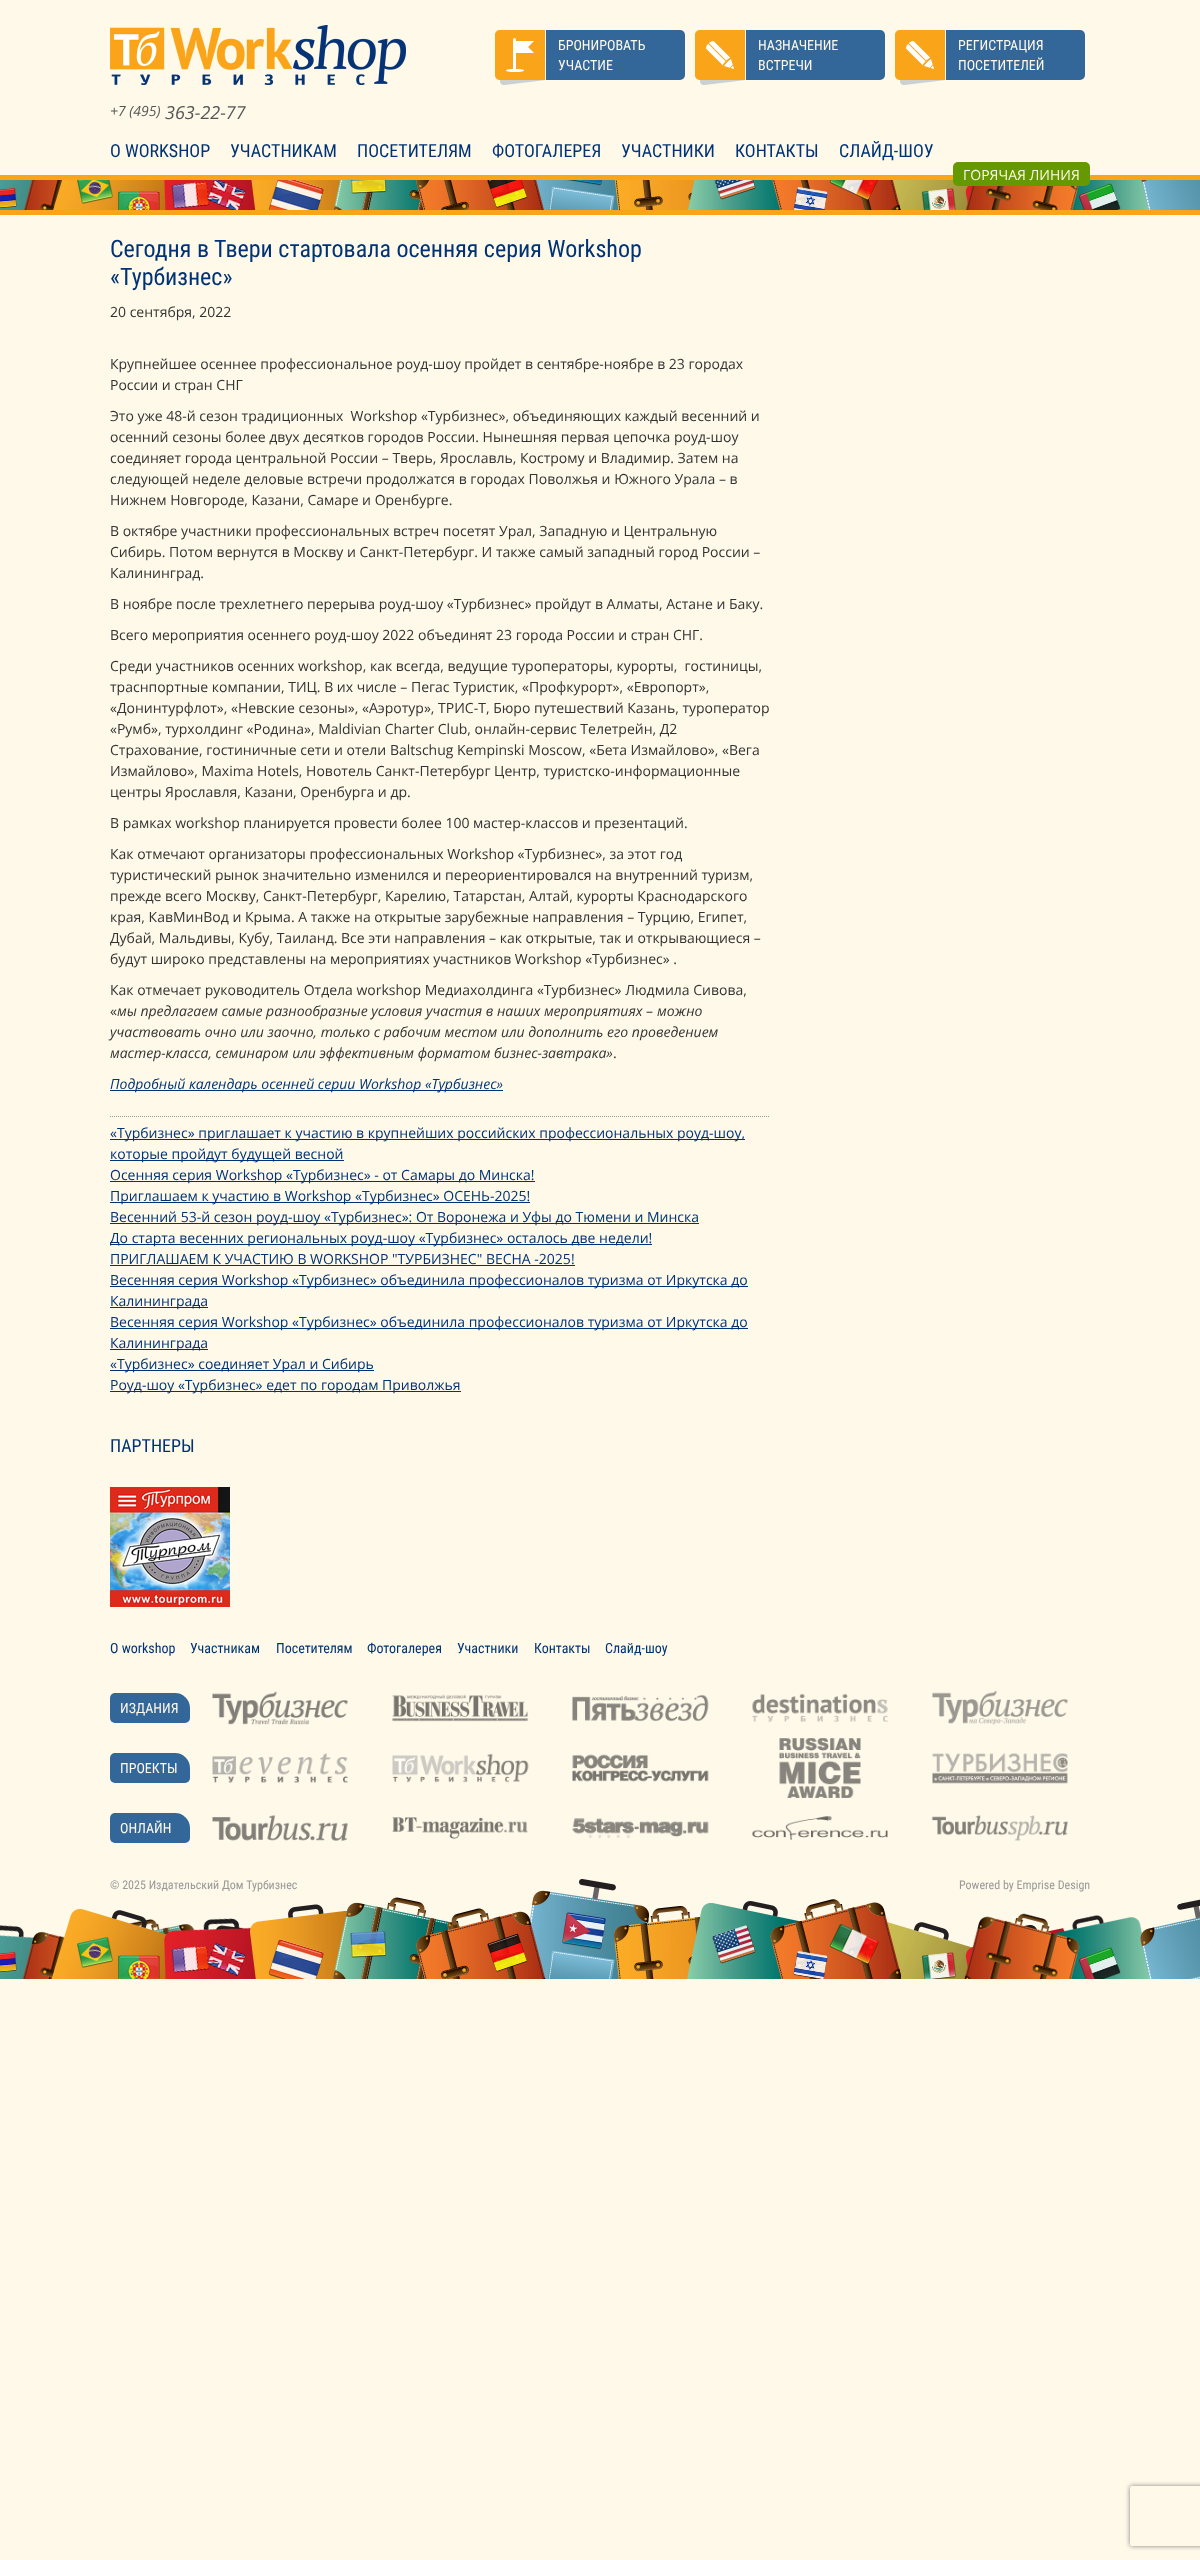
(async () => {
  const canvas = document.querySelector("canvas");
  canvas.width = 1200;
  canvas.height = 2560;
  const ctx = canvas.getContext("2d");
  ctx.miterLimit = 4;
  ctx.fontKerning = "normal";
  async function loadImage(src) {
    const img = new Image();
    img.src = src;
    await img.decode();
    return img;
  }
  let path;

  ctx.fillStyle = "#fef9e9";
  ctx.fillRect(0, 0, 1200, 2560);
  ctx.drawImage(await loadImage("img/1.png"), 110, 25, 296, 60);
  ctx.drawImage(await loadImage("img/2.png"), 495, 30, 50, 55);
  ctx.fillStyle = "#336699";
  ctx.beginPath();
  ctx.roundRect(545, 30, 140, 50, [0, 5, 5, 0]);
  ctx.fill();
  ctx.fillStyle = "#fef9e9";
  ctx.fillRect(545, 30, 1, 50);
  ctx.drawImage(await loadImage("img/3.png"), 695, 30, 50, 55);
  ctx.fillStyle = "#336699";
  ctx.beginPath();
  ctx.roundRect(745, 30, 140, 50, [0, 5, 5, 0]);
  ctx.fill();
  ctx.fillStyle = "#fef9e9";
  ctx.fillRect(745, 30, 1, 50);
  ctx.drawImage(await loadImage("img/3.png"), 895, 30, 50, 55);
  ctx.fillStyle = "#336699";
  ctx.beginPath();
  ctx.roundRect(945, 30, 140, 50, [0, 5, 5, 0]);
  ctx.fill();
  ctx.fillStyle = "#fef9e9";
  ctx.fillRect(945, 30, 1, 50);
  ctx.drawImage(await loadImage("img/4.png"), 0, 180, 1200, 30);
  ctx.fillStyle = "#faa41a";
  ctx.fillRect(0, 175, 1200, 5);
  ctx.fillStyle = "#669900";
  ctx.beginPath();
  ctx.roundRect(953, 162, 137, 24, 5);
  ctx.fill();
  ctx.fillStyle = "#faa41a";
  ctx.fillRect(0, 210, 1200, 5);
  ctx.fillStyle = "#003375";
  ctx.fillRect(110, 1090, 393, 1);
  path = new Path2D("M110 1116.5H770");
  ctx.strokeStyle = "#999999";
  ctx.setLineDash([1, 1]);
  ctx.stroke(path);
  for (const [x, y, w, h, color] of [
    [110, 1139, 635, 1, "#003375"],
    [110, 1160, 234, 1, "#003375"],
    [110, 1181, 425, 1, "#003375"],
    [110, 1202, 420, 1, "#003375"],
    [110, 1223, 589, 1, "#003375"],
    [110, 1244, 542, 1, "#003375"],
    [110, 1265, 465, 1, "#003375"],
    [110, 1286, 638, 1, "#003375"],
    [110, 1307, 98, 1, "#003375"],
    [110, 1328, 638, 1, "#003375"],
    [110, 1349, 98, 1, "#003375"],
    [110, 1370, 264, 1, "#003375"],
    [110, 1391, 351, 1, "#003375"],
  ]) {
    ctx.fillStyle = color;
    ctx.fillRect(x, y, w, h);
  }
  ctx.drawImage(await loadImage("img/5.png"), 110, 1487, 120, 120);
  ctx.drawImage(await loadImage("img/6.png"), 0, 1879, 1200, 100);
  ctx.fillStyle = "#336699";
  ctx.beginPath();
  ctx.roundRect(110, 1693, 80, 30, [5, 15, 5, 5]);
  ctx.fill();
  ctx.drawImage(await loadImage("img/7.png"), 212, 1691, 136, 34);
  ctx.drawImage(await loadImage("img/8.png"), 392, 1694, 137, 28);
  ctx.drawImage(await loadImage("img/9.png"), 572, 1694, 137, 28);
  ctx.drawImage(await loadImage("img/10.png"), 752, 1693, 136, 29);
  ctx.drawImage(await loadImage("img/11.png"), 932, 1691, 136, 34);
  ctx.beginPath();
  ctx.roundRect(110, 1753, 80, 30, [5, 15, 5, 5]);
  ctx.fill();
  ctx.drawImage(await loadImage("img/12.png"), 212, 1753, 136, 30);
  ctx.drawImage(await loadImage("img/13.png"), 392, 1753, 137, 30);
  ctx.drawImage(await loadImage("img/14.png"), 572, 1754, 137, 28);
  ctx.drawImage(await loadImage("img/15.png"), 779, 1738, 82, 60);
  ctx.drawImage(await loadImage("img/16.png"), 932, 1753, 136, 31);
  ctx.beginPath();
  ctx.roundRect(110, 1813, 80, 30, [5, 15, 5, 5]);
  ctx.fill();
  ctx.drawImage(await loadImage("img/17.png"), 212, 1815, 136, 26);
  ctx.drawImage(await loadImage("img/18.png"), 392, 1817, 136, 22);
  ctx.drawImage(await loadImage("img/19.png"), 572, 1818, 137, 20);
  ctx.drawImage(await loadImage("img/20.png"), 752, 1816, 136, 24);
  ctx.drawImage(await loadImage("img/21.png"), 931, 1815, 137, 26);
  ctx.save();
  path = new Path2D("M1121 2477H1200V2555H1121ZM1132 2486H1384C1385 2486 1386 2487 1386 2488V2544C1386 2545 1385 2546 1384 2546H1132C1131 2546 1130 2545 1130 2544V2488C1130 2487 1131 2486 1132 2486Z");
  ctx.clip(path, "evenodd");
  ctx.fillStyle = "#808080";
  ctx.filter = "blur(2.5px)";
  ctx.beginPath();
  ctx.roundRect(1130, 2486, 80, 60, 2);
  ctx.fill();
  ctx.filter = "none";
  ctx.restore();
  ctx.font = "14px Roboto Condensed";
  ctx.fillStyle = "#fef9e9";
  for (const [text, x, y] of [
    ["БРОНИРОВАТЬ", 558, 50],
    ["УЧАСТИЕ", 558, 70],
    ["НАЗНАЧЕНИЕ", 758, 50],
    ["ВСТРЕЧИ", 758, 70],
    ["РЕГИСТРАЦИЯ", 958, 50],
    ["ПОСЕТИТЕЛЕЙ", 958, 70],
  ]) {
    ctx.fillText(text, x, y);
  }
  ctx.font = "italic 14px Open Sans";
  ctx.fillStyle = "#555555";
  ctx.fillText("+7 (495)", 110, 116);
  ctx.font = "italic 18px Open Sans";
  ctx.fillText("363-22-77", 165, 119);
  ctx.font = "18px Roboto Condensed";
  ctx.fillStyle = "#003375";
  for (const [text, x, y] of [
    ["О WORKSHOP", 110, 157],
    ["УЧАСТНИКАМ", 230, 157],
    ["ПОСЕТИТЕЛЯМ", 357, 157],
    ["ФОТОГАЛЕРЕЯ", 492, 157],
    ["УЧАСТНИКИ", 621, 157],
    ["КОНТАКТЫ", 735, 157],
    ["СЛАЙД-ШОУ", 839, 157],
  ]) {
    ctx.fillText(text, x, y);
  }
  ctx.font = "14px Open Sans";
  ctx.fillStyle = "#fef9e9";
  ctx.fillText("ГОРЯЧАЯ ЛИНИЯ", 963, 180);
  ctx.font = "24px Roboto Condensed";
  ctx.fillStyle = "#003375";
  ctx.fillText("Сегодня в Твери стартовала осенняя серия Workshop", 110, 257);
  ctx.fillText("«Турбизнес»", 110, 285);
  ctx.font = "14px Open Sans";
  ctx.fillStyle = "#333333";
  for (const [text, x, y] of [
    ["20 сентября, 2022", 110, 317],
    ["Крупнейшее осеннее профессиональное роуд-шоу пройдет в сентябре-ноябре в 23 городах", 110, 369],
    ["России и стран СНГ", 110, 390],
    ["Это уже 48-й сезон традиционных  Workshop «Турбизнес», объединяющих каждый весенний и", 110, 421],
    ["осенний сезоны более двух десятков городов России. Нынешняя первая цепочка роуд-шоу", 110, 442],
    ["соединяет города центральной России – Тверь, Ярославль, Кострому и Владимир. Затем на", 110, 463],
    ["следующей неделе деловые встречи продолжатся в городах Поволжья и Южного Урала – в", 110, 484],
    ["Нижнем Новгороде, Казани, Самаре и Оренбурге.", 110, 505],
    ["В октябре участники профессиональных встреч посетят Урал, Западную и Центральную", 110, 536],
    ["Сибирь. Потом вернутся в Москву и Санкт-Петербург. И также самый западный город России –", 110, 557],
    ["Калининград.", 110, 578],
    ["В ноябре после трехлетнего перерыва роуд-шоу «Турбизнес» пройдут в Алматы, Астане и Баку.", 110, 609],
    ["Всего мероприятия осеннего роуд-шоу 2022 объединят 23 города России и стран СНГ.", 110, 640],
    ["Среди участников осенних workshop, как всегда, ведущие туроператоры, курорты,  гостиницы,", 110, 671],
    ["траснпортные компании, ТИЦ. В их числе – Пегас Туристик, «Профкурорт», «Европорт»,", 110, 692],
    ["«Донинтурфлот», «Невские сезоны», «Аэротур», ТРИС-Т, Бюро путешествий Казань, туроператор", 110, 713],
    ["«Румб», турхолдинг «Родина», Maldivian Charter Club, онлайн-сервис Телетрейн, Д2", 110, 734],
    ["Страхование, гостиничные сети и отели Baltschug Kempinski Moscow, «Бета Измайлово», «Вега", 110, 755],
    ["Измайлово», Maxima Hotels, Новотель Санкт-Петербург Центр, туристско-информационные", 110, 776],
    ["центры Ярославля, Казани, Оренбурга и др.", 110, 797],
    ["В рамках workshop планируется провести более 100 мастер-классов и презентаций.", 110, 828],
    ["Как отмечают организаторы профессиональных Workshop «Турбизнес», за этот год", 110, 859],
    ["туристический рынок значительно изменился и переориентировался на внутренний туризм,", 110, 880],
    ["прежде всего Москву, Санкт-Петербург, Карелию, Татарстан, Алтай, курорты Краснодарского", 110, 901],
    ["края, КавМинВод и Крыма. А также на открытые зарубежные направления – Турцию, Египет,", 110, 922],
    ["Дубай, Мальдивы, Кубу, Таиланд. Все эти направления – как открытые, так и открывающиеся –", 110, 943],
    ["будут широко представлены на мероприятиях участников Workshop «Турбизнес» .", 110, 964],
    ["Как отмечает руководитель Отдела workshop Медиахолдинга «Турбизнес» Людмила Сивова,", 110, 995],
    ["«", 110, 1016],
  ]) {
    ctx.fillText(text, x, y);
  }
  ctx.font = "italic 14px Open Sans";
  ctx.fillText("мы предлагаем самые разнообразные условия участия в наших мероприятиях", 117, 1016);
  ctx.font = "14px Open Sans";
  ctx.fillText("–", 646, 1016);
  ctx.font = "italic 14px Open Sans";
  for (const [text, x, y] of [
    ["можно", 657, 1016],
    ["участвовать очно или заочно, только с рабочим местом или дополнить его проведением", 110, 1037],
    ["мастер-класса, семинаром или эффективным форматом бизнес-завтрака»", 110, 1058],
  ]) {
    ctx.fillText(text, x, y);
  }
  ctx.font = "14px Open Sans";
  ctx.fillText(".", 613, 1058);
  ctx.font = "italic 14px Open Sans";
  ctx.fillStyle = "#003375";
  ctx.fillText("Подробный календарь осенней серии Workshop «Турбизнес»", 110, 1089);
  ctx.font = "14px Open Sans";
  for (const [text, x, y] of [
    ["«Турбизнес» приглашает к участию в крупнейших российских профессиональных роуд-шоу,", 110, 1138],
    ["которые пройдут будущей весной", 110, 1159],
    ["Осенняя серия Workshop «Турбизнес» - от Самары до Минска!", 110, 1180],
    ["Приглашаем к участию в Workshop «Турбизнес» ОСЕНЬ-2025!", 110, 1201],
    ["Весенний 53-й сезон роуд-шоу «Турбизнес»: От Воронежа и Уфы до Тюмени и Минска", 110, 1222],
    ["До старта весенних региональных роуд-шоу «Турбизнес» осталось две недели!", 110, 1243],
    ["ПРИГЛАШАЕМ К УЧАСТИЮ В WORKSHOP \"ТУРБИЗНЕС\" ВЕСНА -2025!", 110, 1264],
    ["Весенняя серия Workshop «Турбизнес» объединила профессионалов туризма от Иркутска до", 110, 1285],
    ["Калининграда", 110, 1306],
    ["Весенняя серия Workshop «Турбизнес» объединила профессионалов туризма от Иркутска до", 110, 1327],
    ["Калининграда", 110, 1348],
    ["«Турбизнес» соединяет Урал и Сибирь", 110, 1369],
    ["Роуд-шоу «Турбизнес» едет по городам Приволжья", 110, 1390],
  ]) {
    ctx.fillText(text, x, y);
  }
  ctx.font = "18px Roboto Condensed";
  ctx.fillText("ПАРТНЕРЫ", 110, 1452);
  ctx.font = "14px Roboto Condensed";
  for (const [text, x, y] of [
    ["О workshop", 110, 1653],
    ["Участникам", 190, 1653],
    ["Посетителям", 276, 1653],
    ["Фотогалерея", 367, 1653],
    ["Участники", 457, 1653],
    ["Контакты", 534, 1653],
    ["Слайд-шоу", 605, 1653],
  ]) {
    ctx.fillText(text, x, y);
  }
  ctx.fillStyle = "#fef9e9";
  for (const [text, x, y] of [
    ["ИЗДАНИЯ", 120, 1713],
    ["ПРОЕКТЫ", 120, 1773],
    ["ОНЛАЙН", 120, 1833],
  ]) {
    ctx.fillText(text, x, y);
  }
  ctx.font = "12px Roboto Condensed";
  ctx.fillStyle = "#999999";
  ctx.fillText("© 2025 Издательский Дом Турбизнес", 110, 1889);
  ctx.fillText("Powered by Emprise Design", 959, 1889);
})();
